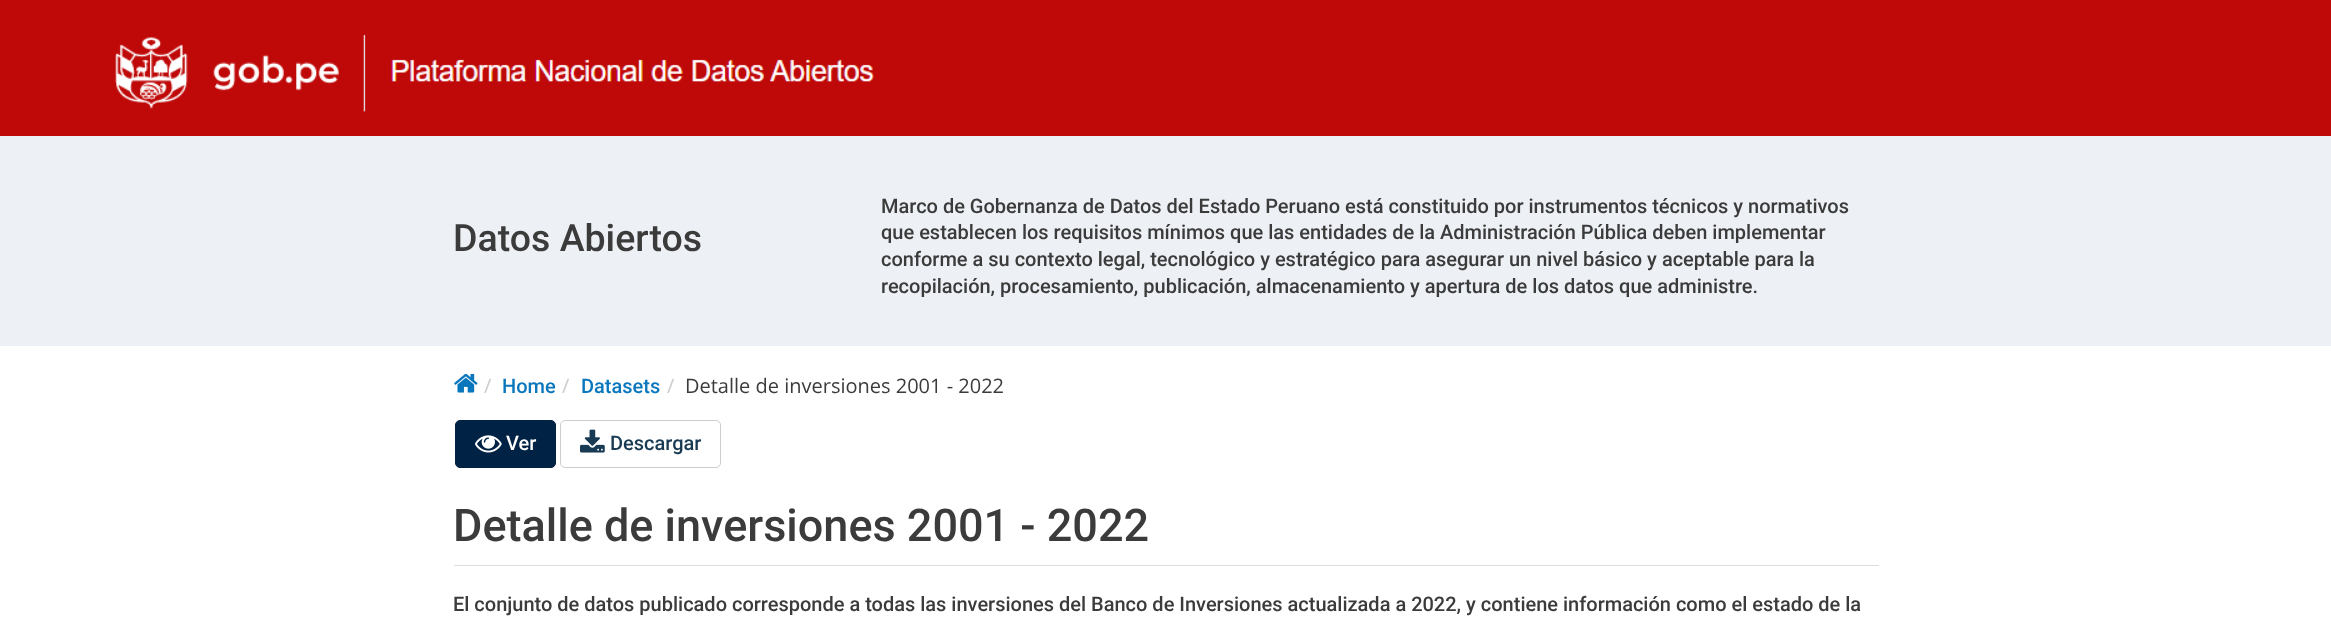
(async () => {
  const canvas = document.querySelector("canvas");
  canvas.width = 2331;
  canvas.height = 624;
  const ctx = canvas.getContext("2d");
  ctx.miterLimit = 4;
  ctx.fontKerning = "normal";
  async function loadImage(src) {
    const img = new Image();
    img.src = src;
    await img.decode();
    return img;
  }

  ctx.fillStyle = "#ffffff";
  ctx.fillRect(0, 0, 2331, 624);
  ctx.fillStyle = "#bf0909";
  ctx.fillRect(0, 0, 2331, 136);
  ctx.drawImage(await loadImage("img/1.png"), 115, 34, 759, 78);
  ctx.fillStyle = "#edf0f4";
  ctx.fillRect(0, 136, 2331, 210);
  ctx.drawImage(await loadImage("img/2.png"), 454, 373, 24, 20);
  ctx.fillStyle = "#002245";
  ctx.beginPath();
  ctx.roundRect(455.5, 420.5, 100, 47, 4.5);
  ctx.fill();
  ctx.strokeStyle = "#002245";
  ctx.stroke();
  ctx.drawImage(await loadImage("img/3.png"), 475, 435, 27, 18);
  ctx.beginPath();
  ctx.roundRect(560.5, 420.5, 160, 47, 4.5);
  ctx.strokeStyle = "#cdcdcd";
  ctx.stroke();
  ctx.drawImage(await loadImage("img/4.png"), 580, 429, 25, 24);
  ctx.fillStyle = "#dddddd";
  ctx.fillRect(454, 565, 1425, 1);
  ctx.font = "500 37.5px Roboto";
  ctx.fillStyle = "#3b3b3b";
  ctx.fillText("Datos Abiertos", 453, 251);
  ctx.font = "500 20px Roboto";
  for (const [text, x, y] of [
    ["Marco de Gobernanza de Datos del Estado Peruano está constituido por instrumentos técnicos y normativos", 881, 213],
    ["que establecen los requisitos mínimos que las entidades de la Administración Pública deben implementar", 881, 239],
    ["conforme a su contexto legal, tecnológico y estratégico para asegurar un nivel básico y aceptable para la", 881, 266],
    ["recopilación, procesamiento, publicación, almacenamiento y apertura de los datos que administre.", 881, 293],
  ]) {
    ctx.fillText(text, x, y);
  }
  ctx.font = "20px Open Sans";
  ctx.fillStyle = "#cccccc";
  ctx.fillText("/", 484, 393);
  ctx.font = "500 20px Roboto";
  ctx.fillStyle = "#0a77bd";
  ctx.fillText("Home", 502, 393);
  ctx.font = "20px Open Sans";
  ctx.fillStyle = "#cccccc";
  ctx.fillText("/", 562, 393);
  ctx.font = "500 20px Roboto";
  ctx.fillStyle = "#0a77bd";
  ctx.fillText("Datasets", 581, 393);
  ctx.font = "20px Open Sans";
  ctx.fillStyle = "#cccccc";
  ctx.fillText("/", 667, 393);
  ctx.fillStyle = "#3b3b3b";
  ctx.fillText("Detalle de inversiones 2001 - 2022", 685, 393);
  ctx.font = "500 20px Roboto";
  ctx.fillStyle = "#ffffff";
  ctx.fillText("Ver", 506, 450);
  ctx.fillStyle = "#193a53";
  ctx.fillText("Descargar", 610, 450);
  ctx.font = "500 45px Roboto";
  ctx.fillStyle = "#3b3b3b";
  ctx.fillText("Detalle de inversiones 2001 - 2022", 453, 541);
  ctx.font = "500 20px Roboto";
  ctx.fillText("El conjunto de datos publicado corresponde a todas las inversiones del Banco de Inversiones actualizada a 2022, y contiene información como el estado de la", 453, 611);
})();
